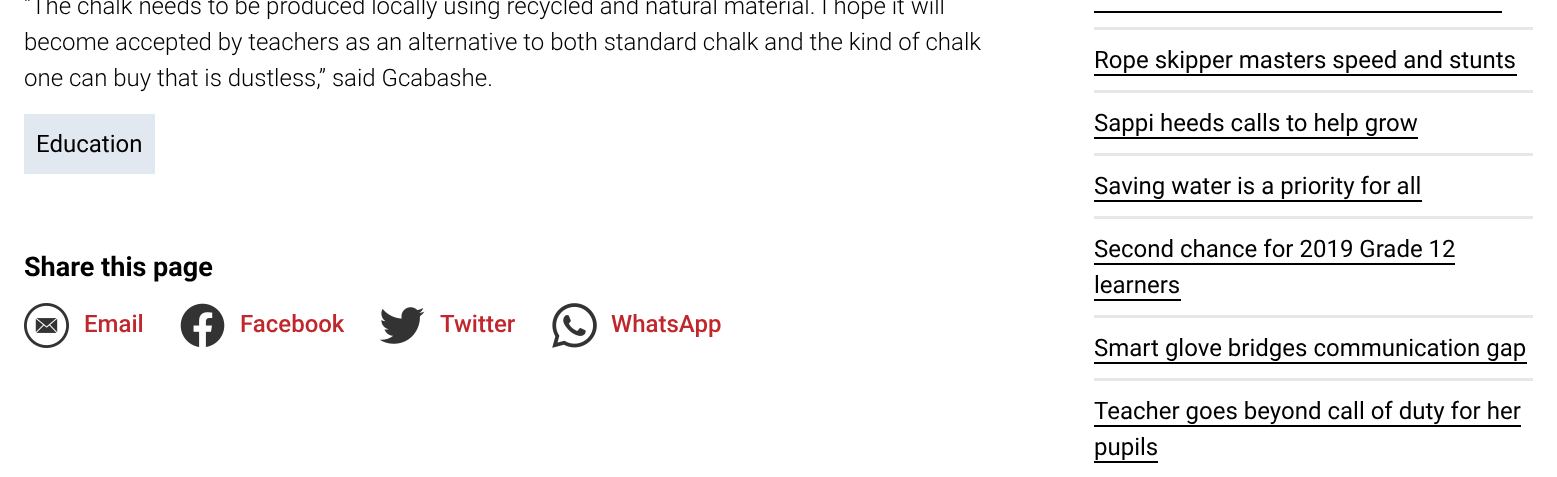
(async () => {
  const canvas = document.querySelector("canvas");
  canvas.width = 1557;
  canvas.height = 477;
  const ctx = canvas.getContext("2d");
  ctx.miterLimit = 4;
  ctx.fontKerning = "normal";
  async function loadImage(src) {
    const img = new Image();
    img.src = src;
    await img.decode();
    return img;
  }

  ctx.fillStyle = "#ffffff";
  ctx.fillRect(0, 0, 1557, 477);
  ctx.fillStyle = "#e2e8f0";
  ctx.fillRect(24, 114, 131, 60);
  ctx.drawImage(await loadImage("img/1.png"), 24, 303, 45, 45);
  ctx.drawImage(await loadImage("img/2.png"), 180, 303, 45, 44);
  ctx.drawImage(await loadImage("img/3.png"), 380, 307, 45, 37);
  ctx.drawImage(await loadImage("img/4.png"), 552, 303, 45, 45);
  for (const [x, y, w, h, color] of [
    [1094, 27, 439, 3, "#e5e7eb"],
    [1094, 11, 408, 2, "#000000"],
    [1094, 90, 439, 3, "#e5e7eb"],
    [1094, 74, 423, 2, "#000000"],
    [1094, 153, 439, 3, "#e5e7eb"],
    [1094, 137, 324, 2, "#000000"],
    [1094, 216, 439, 3, "#e5e7eb"],
    [1094, 200, 328, 2, "#000000"],
    [1094, 315, 439, 3, "#e5e7eb"],
    [1094, 263, 361, 2, "#000000"],
    [1094, 299, 87, 2, "#000000"],
    [1094, 378, 439, 3, "#e5e7eb"],
    [1094, 362, 433, 2, "#000000"],
    [1094, 425, 427, 2, "#000000"],
    [1094, 461, 64, 2, "#000000"],
  ]) {
    ctx.fillStyle = color;
    ctx.fillRect(x, y, w, h);
  }
  ctx.font = "300 24px Roboto";
  for (const [text, x, y] of [
    ["“The chalk needs to be produced locally using recycled and natural material. I hope it will", 24, 14],
    ["become accepted by teachers as an alternative to both standard chalk and the kind of chalk", 24, 50],
    ["one can buy that is dustless,” said Gcabashe.", 24, 86],
  ]) {
    ctx.fillText(text, x, y);
  }
  ctx.font = "24px Roboto";
  ctx.fillText("Education", 36, 152);
  ctx.font = "bold 27px Roboto";
  ctx.fillText("Share this page", 24, 276);
  ctx.font = "500 24px Roboto";
  ctx.fillStyle = "#c0272d";
  for (const [text, x, y] of [
    ["Email", 84, 332],
    ["Facebook", 240, 332],
    ["Twitter", 440, 332],
    ["WhatsApp", 611, 332],
  ]) {
    ctx.fillText(text, x, y);
  }
  ctx.font = "24px Roboto";
  ctx.fillStyle = "#000000";
  for (const [text, x, y] of [
    ["Rope skipper masters speed and stunts", 1094, 68],
    ["Sappi heeds calls to help grow", 1094, 131],
    ["Saving water is a priority for all", 1094, 194],
    ["Second chance for 2019 Grade 12", 1094, 257],
    ["learners", 1094, 293],
    ["Smart glove bridges communication gap", 1094, 356],
    ["Teacher goes beyond call of duty for her", 1094, 419],
    ["pupils", 1094, 455],
  ]) {
    ctx.fillText(text, x, y);
  }
})();
